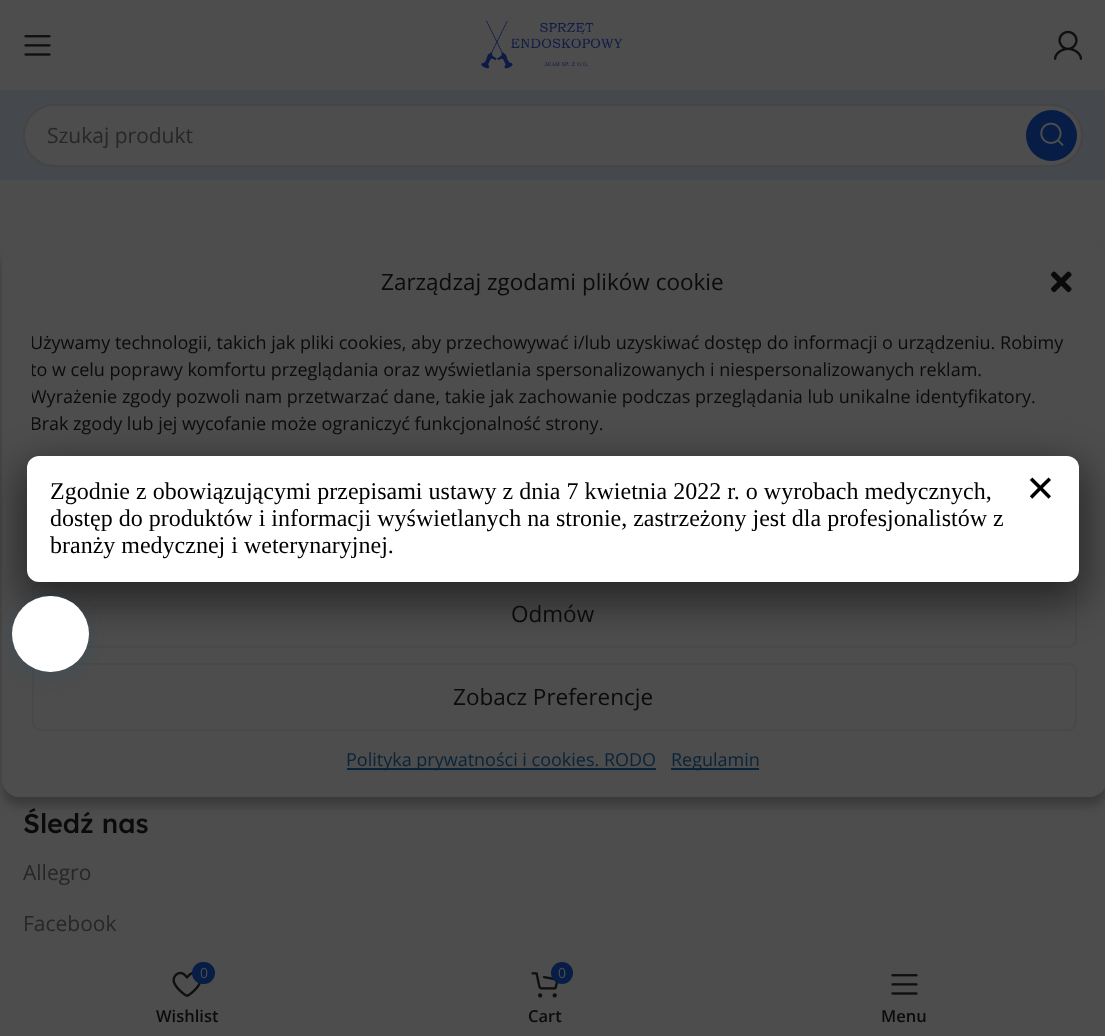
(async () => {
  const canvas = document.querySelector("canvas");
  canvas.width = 1105;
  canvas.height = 1036;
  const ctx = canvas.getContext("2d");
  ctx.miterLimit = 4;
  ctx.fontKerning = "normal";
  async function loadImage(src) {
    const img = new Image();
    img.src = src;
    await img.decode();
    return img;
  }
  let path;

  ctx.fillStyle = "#4d4d4d";
  ctx.fillRect(0, 0, 1105, 1036);
  ctx.drawImage(await loadImage("img/1.png"), 24, 35, 27, 21);
  ctx.drawImage(await loadImage("img/2.png"), 481, 20, 142, 49);
  ctx.drawImage(await loadImage("img/3.png"), 1053, 30, 30, 30);
  ctx.fillStyle = "#45484c";
  ctx.fillRect(0, 90, 1105, 90);
  ctx.fillStyle = "#4d4d4d";
  ctx.beginPath();
  ctx.roundRect(23, 104, 1060, 63, 31.5);
  ctx.fill();
  ctx.beginPath();
  ctx.roundRect(24, 105, 1058, 61, 30.5);
  ctx.strokeStyle = "rgba(0, 0, 0, 0.1)";
  ctx.lineWidth = 2;
  ctx.stroke();
  ctx.fillStyle = "#081d45";
  ctx.beginPath();
  ctx.arc(1051.5, 135.5, 25.5, 0, Math.PI * 2);
  ctx.fill();
  ctx.drawImage(await loadImage("img/4.png"), 1040, 122, 24, 24);
  ctx.save();
  path = new Path2D("M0 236H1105V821H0ZM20 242H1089C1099 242 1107 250 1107 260V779C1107 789 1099 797 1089 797H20C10 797 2 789 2 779V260C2 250 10 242 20 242Z");
  ctx.clip(path, "evenodd");
  ctx.fillStyle = "rgba(0, 0, 0, 0.23)";
  ctx.filter = "blur(4.5px)";
  ctx.beginPath();
  ctx.roundRect(2, 251, 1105, 555, 18);
  ctx.fill();
  ctx.filter = "none";
  ctx.restore();
  ctx.fillStyle = "#4d4d4d";
  ctx.beginPath();
  ctx.roundRect(2, 242, 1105, 555, 18);
  ctx.fill();
  ctx.drawImage(await loadImage("img/5.png"), 1051, 271, 21, 22);
  ctx.beginPath();
  ctx.roundRect(33, 582, 1043, 65, 8);
  ctx.strokeStyle = "#494949";
  ctx.stroke();
  ctx.beginPath();
  ctx.roundRect(33, 664, 1043, 66, 8);
  ctx.stroke();
  ctx.fillStyle = "#092339";
  ctx.fillRect(347, 768, 309, 2);
  ctx.fillRect(671, 768, 88, 2);
  ctx.fillStyle = "rgba(2, 2, 2, 0.5)";
  ctx.filter = "blur(19px)";
  ctx.beginPath();
  ctx.roundRect(21, 465, 1064, 138, 18);
  ctx.fill();
  ctx.filter = "none";
  ctx.fillStyle = "#ffffff";
  ctx.beginPath();
  ctx.roundRect(27, 456, 1052, 126, 12);
  ctx.fill();
  ctx.fillStyle = "rgba(11, 86, 128, 0.2)";
  ctx.filter = "blur(7.5px)";
  ctx.beginPath();
  ctx.roundRect(12, 599, 77, 76, 38);
  ctx.fill();
  ctx.filter = "none";
  ctx.fillStyle = "#ffffff";
  ctx.beginPath();
  ctx.roundRect(12, 596, 77, 76, 38);
  ctx.fill();
  ctx.drawImage(await loadImage("img/6.png"), 172, 971, 29, 26);
  ctx.fillStyle = "#081d45";
  ctx.beginPath();
  ctx.roundRect(192, 962, 23, 22, 11);
  ctx.fill();
  ctx.drawImage(await loadImage("img/7.png"), 531, 972, 27, 26);
  ctx.beginPath();
  ctx.arc(562, 973, 11, 0, Math.PI * 2);
  ctx.fill();
  ctx.drawImage(await loadImage("img/1.png"), 891, 974, 27, 21);
  ctx.font = "21px Open Sans";
  ctx.fillStyle = "#272727";
  ctx.fillText("Szukaj produkt", 47, 143);
  ctx.font = "500 27px Lexend Deca";
  ctx.fillStyle = "#0b0b0b";
  ctx.fillText("Śledź nas", 23, 833);
  ctx.font = "21px Open Sans";
  ctx.fillStyle = "#272727";
  ctx.fillText("Allegro", 23, 880);
  ctx.fillText("Facebook", 23, 931);
  ctx.font = "22.5px Open Sans";
  ctx.fillStyle = "#0b0b0b";
  ctx.fillText("Zarządzaj zgodami plików cookie", 381, 290);
  ctx.save();
  ctx.beginPath();
  ctx.rect(32, 330, 1045, 138);
  ctx.clip();
  ctx.font = "18px Open Sans";
  for (const [text, x, y] of [
    ["Używamy technologii, takich jak pliki cookies, aby przechowywać i/lub uzyskiwać dostęp do informacji o urządzeniu. Robimy", 30, 349],
    ["to w celu poprawy komfortu przeglądania oraz wyświetlania spersonalizowanych i niespersonalizowanych reklam.", 30, 376],
    ["Wyrażenie zgody pozwoli nam przetwarzać dane, takie jak zachowanie podczas przeglądania lub unikalne identyfikatory.", 30, 403],
    ["Brak zgody lub jej wycofanie może ograniczyć funkcjonalność strony.", 30, 430],
  ]) {
    ctx.fillText(text, x, y);
  }
  ctx.restore();
  ctx.fillText("Odmów", 511, 622);
  ctx.fillText("Zobacz Preferencje", 453, 705);
  ctx.font = "18px Open Sans";
  ctx.fillStyle = "#092339";
  ctx.fillText("Polityka prywatności i cookies. RODO", 346, 766);
  ctx.fillText("Regulamin", 671, 766);
  ctx.font = "24px Liberation Serif";
  ctx.fillStyle = "#000000";
  for (const [text, x, y] of [
    ["Zgodnie z obowiązującymi przepisami ustawy z dnia 7 kwietnia 2022 r. o wyrobach medycznych,", 50, 499],
    ["dostęp do produktów i informacji wyświetlanych na stronie, zastrzeżony jest dla profesjonalistów z", 50, 526],
    ["branży medycznej i weterynaryjnej.", 50, 553],
  ]) {
    ctx.fillText(text, x, y);
  }
  ctx.font = "bold 51px Liberation Serif";
  ctx.fillText("×", 1026, 505);
  ctx.font = "14px Open Sans";
  ctx.fillStyle = "#4d4d4d";
  ctx.fillText("0", 200, 978);
  ctx.font = "600 16.5px Open Sans";
  ctx.fillStyle = "#0b0b0b";
  ctx.fillText("Wishlist", 156, 1022);
  ctx.font = "14px Open Sans";
  ctx.fillStyle = "#4d4d4d";
  ctx.fillText("0", 558, 978);
  ctx.font = "600 16.5px Open Sans";
  ctx.fillStyle = "#0b0b0b";
  ctx.fillText("Cart", 528, 1022);
  ctx.fillText("Menu", 881, 1022);
})();
